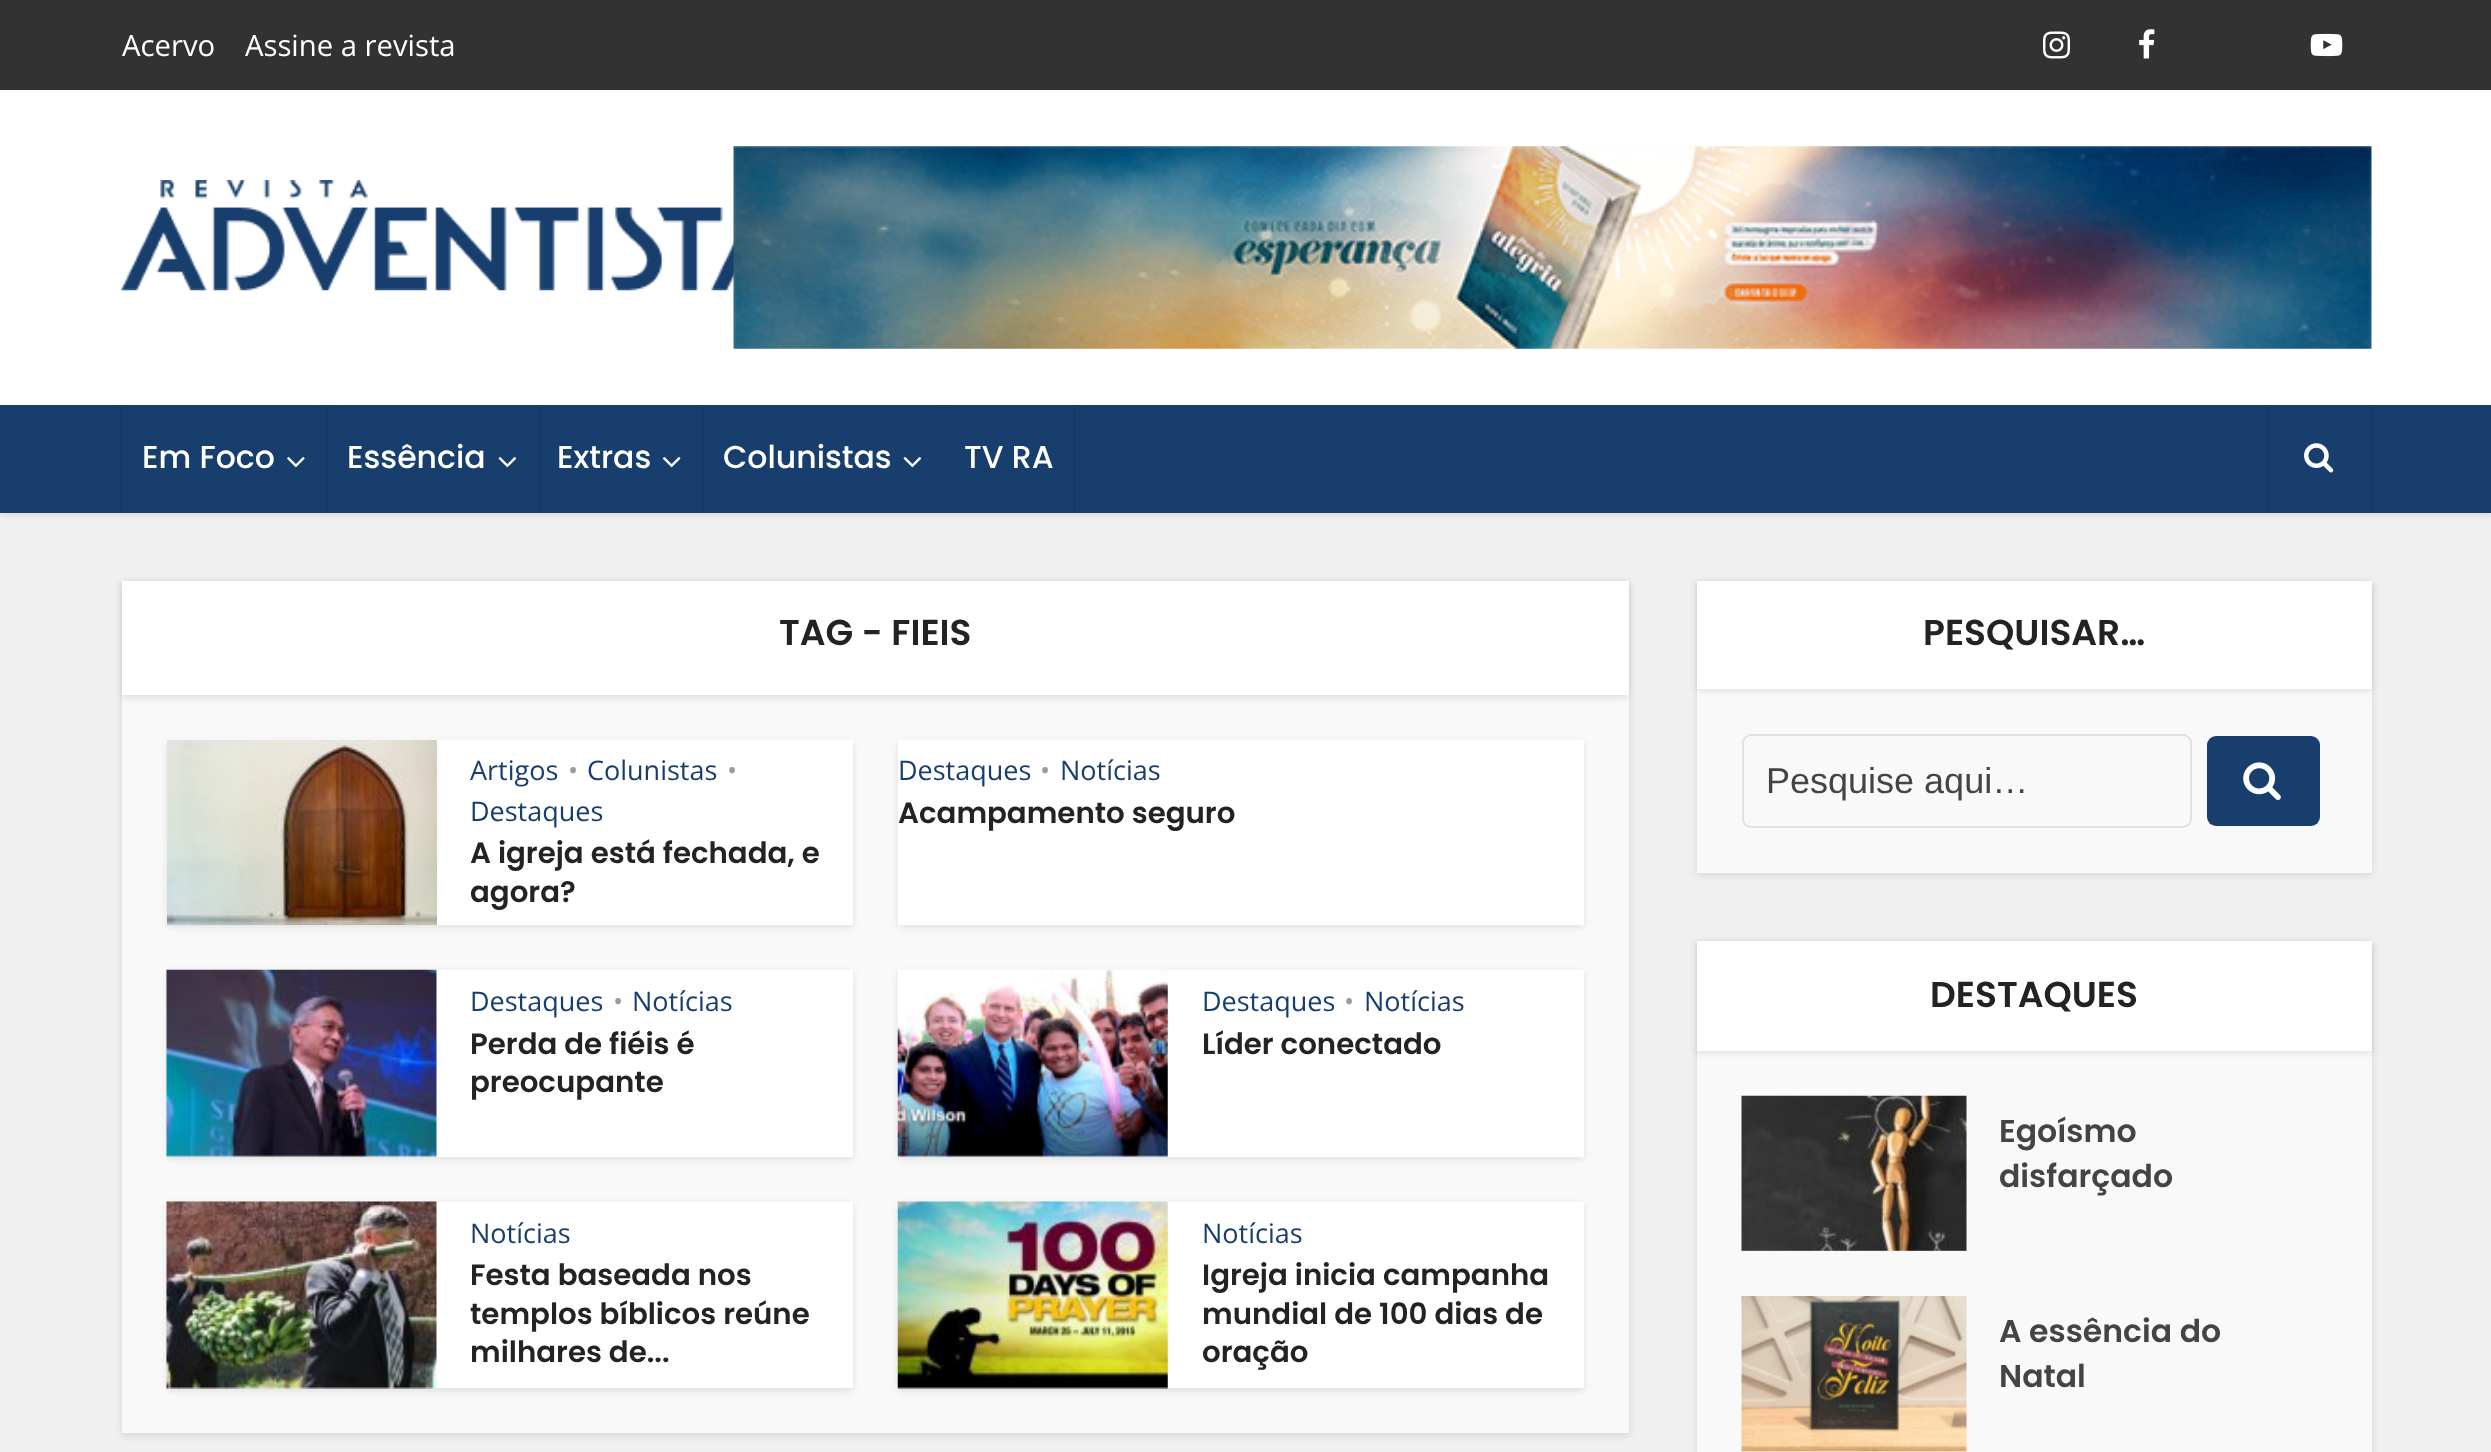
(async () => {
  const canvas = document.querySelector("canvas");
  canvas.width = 2491;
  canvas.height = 1452;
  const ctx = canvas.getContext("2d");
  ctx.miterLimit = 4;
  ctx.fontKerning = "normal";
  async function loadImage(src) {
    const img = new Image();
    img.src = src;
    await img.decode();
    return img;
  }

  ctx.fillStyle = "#f0f0f0";
  ctx.fillRect(0, 0, 2491, 1452);
  ctx.fillStyle = "rgba(0, 0, 0, 0.1)";
  ctx.filter = "blur(3.5px)";
  ctx.beginPath();
  ctx.rect(0, 2, 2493, 513);
  ctx.fill();
  ctx.filter = "none";
  ctx.fillStyle = "#ffffff";
  ctx.fillRect(0, 90, 2491, 315);
  ctx.fillStyle = "#323232";
  ctx.fillRect(0, 0, 2491, 90);
  ctx.drawImage(await loadImage("img/1.png"), 2043, 31, 27, 28);
  ctx.drawImage(await loadImage("img/2.png"), 2139, 29, 16, 30);
  ctx.drawImage(await loadImage("img/3.png"), 2310, 33, 33, 24);
  ctx.drawImage(await loadImage("img/4.png"), 121, 180, 616, 111);
  ctx.drawImage(await loadImage("img/5.png"), 733, 146, 1639, 203);
  for (const [x, y, w, h, color] of [
    [0, 405, 2491, 108, "#183e6d"],
    [326, 405, 3, 108, "#173b68"],
    [119, 405, 3, 108, "#173b68"],
  ]) {
    ctx.fillStyle = color;
    ctx.fillRect(x, y, w, h);
  }
  ctx.drawImage(await loadImage("img/6.png"), 287, 457, 18, 11);
  ctx.fillRect(538, 405, 2, 108);
  ctx.drawImage(await loadImage("img/7.png"), 498, 457, 19, 11);
  ctx.fillRect(702, 405, 2, 108);
  ctx.drawImage(await loadImage("img/8.png"), 662, 457, 19, 11);
  ctx.fillRect(943, 405, 2, 108);
  ctx.drawImage(await loadImage("img/7.png"), 903, 457, 19, 11);
  for (const [x, y, w, h, color] of [
    [1073, 405, 3, 108, "#173b68"],
    [2372, 405, 2, 108, "#173b68"],
    [2268, 405, 2, 108, "#173b68"],
  ]) {
    ctx.fillStyle = color;
    ctx.fillRect(x, y, w, h);
  }
  ctx.drawImage(await loadImage("img/9.png"), 2304, 443, 30, 30);
  ctx.fillStyle = "rgba(0, 0, 0, 0.1)";
  ctx.filter = "blur(3.5px)";
  ctx.beginPath();
  ctx.rect(122, 583, 1507, 853);
  ctx.fill();
  ctx.filter = "none";
  ctx.fillStyle = "#f9f9f9";
  ctx.fillRect(122, 695, 1507, 738);
  ctx.fillStyle = "rgba(0, 0, 0, 0.1)";
  ctx.filter = "blur(3.5px)";
  ctx.beginPath();
  ctx.rect(122, 583, 1507, 115);
  ctx.fill();
  ctx.filter = "none";
  ctx.fillStyle = "#ffffff";
  ctx.fillRect(122, 581, 1507, 114);
  ctx.fillStyle = "rgba(0, 0, 0, 0.1)";
  ctx.filter = "blur(3.5px)";
  ctx.beginPath();
  ctx.rect(167, 743, 686, 184);
  ctx.fill();
  ctx.filter = "none";
  ctx.fillStyle = "#ffffff";
  ctx.fillRect(437, 740, 416, 185);
  ctx.drawImage(await loadImage("img/10.png"), 167, 740, 270, 185);
  ctx.fillStyle = "rgba(0, 0, 0, 0.1)";
  ctx.filter = "blur(3.5px)";
  ctx.beginPath();
  ctx.rect(898, 743, 686, 184);
  ctx.fill();
  ctx.filter = "none";
  ctx.fillStyle = "#ffffff";
  ctx.fillRect(898, 740, 686, 185);
  ctx.fillStyle = "rgba(0, 0, 0, 0.1)";
  ctx.filter = "blur(3.5px)";
  ctx.beginPath();
  ctx.rect(167, 972, 686, 187);
  ctx.fill();
  ctx.filter = "none";
  ctx.fillStyle = "#ffffff";
  ctx.fillRect(167, 970, 686, 187);
  ctx.drawImage(await loadImage("img/11.png"), 166, 969, 271, 188);
  ctx.fillStyle = "rgba(0, 0, 0, 0.1)";
  ctx.filter = "blur(3.5px)";
  ctx.beginPath();
  ctx.rect(898, 972, 686, 187);
  ctx.fill();
  ctx.filter = "none";
  ctx.fillStyle = "#ffffff";
  ctx.fillRect(898, 970, 686, 187);
  ctx.drawImage(await loadImage("img/12.png"), 897, 969, 271, 188);
  ctx.fillStyle = "rgba(0, 0, 0, 0.1)";
  ctx.filter = "blur(3.5px)";
  ctx.beginPath();
  ctx.rect(167, 1204, 686, 187);
  ctx.fill();
  ctx.filter = "none";
  ctx.fillStyle = "#ffffff";
  ctx.fillRect(167, 1202, 686, 186);
  ctx.drawImage(await loadImage("img/13.png"), 166, 1201, 271, 188);
  ctx.fillStyle = "rgba(0, 0, 0, 0.1)";
  ctx.filter = "blur(3.5px)";
  ctx.beginPath();
  ctx.rect(898, 1204, 686, 187);
  ctx.fill();
  ctx.filter = "none";
  ctx.fillStyle = "#ffffff";
  ctx.fillRect(898, 1202, 686, 186);
  ctx.drawImage(await loadImage("img/14.png"), 897, 1201, 271, 188);
  ctx.fillStyle = "rgba(0, 0, 0, 0.1)";
  ctx.filter = "blur(3.5px)";
  ctx.beginPath();
  ctx.rect(1697, 583, 675, 292);
  ctx.fill();
  ctx.filter = "none";
  ctx.fillStyle = "#f9f9f9";
  ctx.fillRect(1697, 689, 675, 184);
  ctx.fillStyle = "rgba(0, 0, 0, 0.1)";
  ctx.filter = "blur(3.5px)";
  ctx.beginPath();
  ctx.rect(1697, 583, 675, 108);
  ctx.fill();
  ctx.filter = "none";
  ctx.fillStyle = "#ffffff";
  ctx.fillRect(1697, 581, 675, 108);
  ctx.beginPath();
  ctx.roundRect(1743, 735, 448, 92, 8);
  ctx.strokeStyle = "#e0e0e0";
  ctx.lineWidth = 2;
  ctx.stroke();
  ctx.fillStyle = "#183e6d";
  ctx.beginPath();
  ctx.roundRect(2207, 736, 113, 90, 9);
  ctx.fill();
  ctx.drawImage(await loadImage("img/15.png"), 2243, 762, 38, 38);
  ctx.fillStyle = "rgba(0, 0, 0, 0.1)";
  ctx.filter = "blur(3.5px)";
  ctx.beginPath();
  ctx.rect(1697, 943, 675, 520);
  ctx.fill();
  ctx.filter = "none";
  ctx.fillStyle = "#f9f9f9";
  ctx.fillRect(1697, 1051, 675, 401);
  ctx.fillStyle = "rgba(0, 0, 0, 0.1)";
  ctx.filter = "blur(3.5px)";
  ctx.beginPath();
  ctx.rect(1697, 943, 675, 110);
  ctx.fill();
  ctx.filter = "none";
  ctx.fillStyle = "#ffffff";
  ctx.fillRect(1697, 941, 675, 110);
  ctx.drawImage(await loadImage("img/16.png"), 1741, 1095, 226, 156);
  ctx.drawImage(await loadImage("img/17.png"), 1741, 1296, 226, 156);
  ctx.font = "29.25px Open Sans";
  ctx.fillText("Acervo", 122, 56);
  ctx.fillText("Assine a revista", 245, 56);
  ctx.font = "500 31.5px Poppins";
  for (const [text, x, y] of [
    ["Em Foco", 142, 468],
    ["Essência", 347, 468],
    ["Extras", 557, 468],
    ["Colunistas", 723, 468],
    ["TV RA", 964, 468],
  ]) {
    ctx.fillText(text, x, y);
  }
  ctx.font = "600 36px Poppins";
  ctx.fillStyle = "#232323";
  ctx.fillText("TAG - FIEIS", 779, 645);
  ctx.font = "27px Open Sans";
  ctx.fillStyle = "#183e6d";
  ctx.fillText("Artigos", 470, 780);
  ctx.fillStyle = "#9b9b9b";
  ctx.fillText("•", 568, 780);
  ctx.fillStyle = "#183e6d";
  ctx.fillText("Colunistas", 587, 780);
  ctx.fillStyle = "#9b9b9b";
  ctx.fillText("•", 727, 780);
  ctx.fillStyle = "#183e6d";
  ctx.fillText("Destaques", 470, 821);
  ctx.font = "600 29.25px Poppins";
  ctx.fillStyle = "#232323";
  ctx.fillText("A igreja está fechada, e", 470, 863);
  ctx.fillText("agora?", 470, 902);
  ctx.font = "27px Open Sans";
  ctx.fillStyle = "#183e6d";
  ctx.fillText("Destaques", 898, 780);
  ctx.fillStyle = "#9b9b9b";
  ctx.fillText("•", 1040, 780);
  ctx.fillStyle = "#183e6d";
  ctx.fillText("Notícias", 1060, 780);
  ctx.font = "600 29.25px Poppins";
  ctx.fillStyle = "#232323";
  ctx.fillText("Acampamento seguro", 898, 823);
  ctx.font = "27px Open Sans";
  ctx.fillStyle = "#183e6d";
  ctx.fillText("Destaques", 470, 1011);
  ctx.fillStyle = "#9b9b9b";
  ctx.fillText("•", 613, 1011);
  ctx.fillStyle = "#183e6d";
  ctx.fillText("Notícias", 632, 1011);
  ctx.font = "600 29.25px Poppins";
  ctx.fillStyle = "#232323";
  ctx.fillText("Perda de fiéis é", 470, 1054);
  ctx.fillText("preocupante", 470, 1092);
  ctx.font = "27px Open Sans";
  ctx.fillStyle = "#183e6d";
  ctx.fillText("Destaques", 1202, 1011);
  ctx.fillStyle = "#9b9b9b";
  ctx.fillText("•", 1344, 1011);
  ctx.fillStyle = "#183e6d";
  ctx.fillText("Notícias", 1364, 1011);
  ctx.font = "600 29.25px Poppins";
  ctx.fillStyle = "#232323";
  ctx.fillText("Líder conectado", 1202, 1054);
  ctx.font = "27px Open Sans";
  ctx.fillStyle = "#183e6d";
  ctx.fillText("Notícias", 470, 1243);
  ctx.font = "600 29.25px Poppins";
  ctx.fillStyle = "#232323";
  for (const [text, x, y] of [
    ["Festa baseada nos", 470, 1285],
    ["templos bíblicos reúne", 470, 1324],
    ["milhares de...", 470, 1362],
  ]) {
    ctx.fillText(text, x, y);
  }
  ctx.font = "27px Open Sans";
  ctx.fillStyle = "#183e6d";
  ctx.fillText("Notícias", 1202, 1243);
  ctx.font = "600 29.25px Poppins";
  ctx.fillStyle = "#232323";
  for (const [text, x, y] of [
    ["Igreja inicia campanha", 1202, 1285],
    ["mundial de 100 dias de", 1202, 1324],
    ["oração", 1202, 1362],
  ]) {
    ctx.fillText(text, x, y);
  }
  ctx.font = "600 36px Poppins";
  ctx.fillText("PESQUISAR…", 1923, 645);
  ctx.font = "36px Liberation Sans";
  ctx.fillStyle = "#444444";
  ctx.fillText("Pesquise aqui…", 1766, 793);
  ctx.font = "600 36px Poppins";
  ctx.fillStyle = "#232323";
  ctx.fillText("DESTAQUES", 1930, 1007);
  ctx.font = "600 31.5px Poppins";
  ctx.fillStyle = "#444444";
  for (const [text, x, y] of [
    ["Egoísmo", 1999, 1142],
    ["disfarçado", 1999, 1187],
    ["A essência do", 1999, 1342],
    ["Natal", 1999, 1387],
  ]) {
    ctx.fillText(text, x, y);
  }
})();
